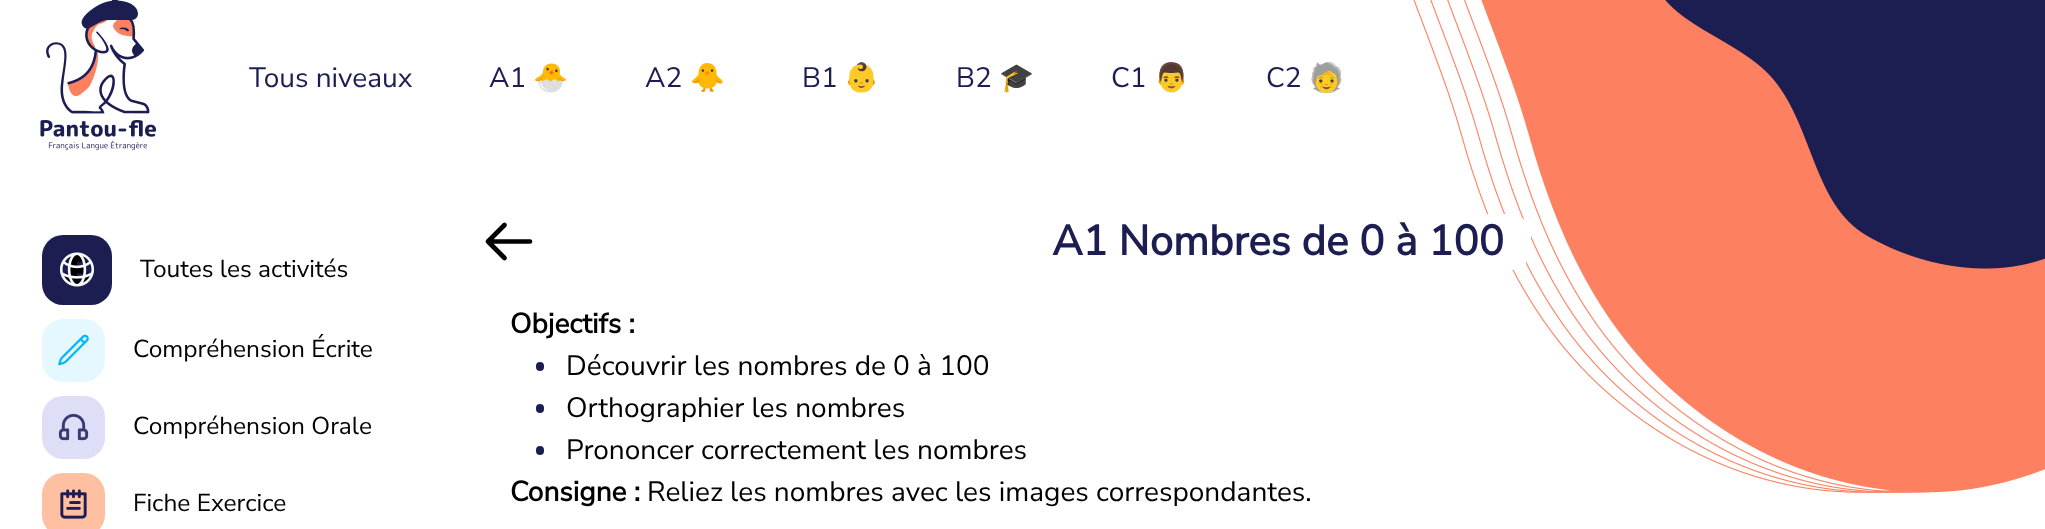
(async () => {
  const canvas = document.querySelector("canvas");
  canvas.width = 2045;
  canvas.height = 529;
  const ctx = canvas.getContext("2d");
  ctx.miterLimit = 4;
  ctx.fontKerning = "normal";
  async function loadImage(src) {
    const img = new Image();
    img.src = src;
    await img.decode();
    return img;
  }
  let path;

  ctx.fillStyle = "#ffffff";
  ctx.fillRect(0, 0, 2045, 529);
  ctx.drawImage(await loadImage("img/1.png"), 40, 0, 117, 151);
  ctx.drawImage(await loadImage("img/2.png"), 1413, 0, 632, 493);
  ctx.fillStyle = "#1c1e52";
  ctx.beginPath();
  ctx.roundRect(42, 235, 70, 70, 21);
  ctx.fill();
  ctx.drawImage(await loadImage("img/3.png"), 59, 252, 36, 35);
  ctx.fillStyle = "#e6f8ff";
  ctx.beginPath();
  ctx.roundRect(42, 319, 63, 63, 21);
  ctx.fill();
  ctx.drawImage(await loadImage("img/4.png"), 58, 334, 31, 32);
  ctx.fillStyle = "#dedef7";
  ctx.beginPath();
  ctx.roundRect(42, 396, 63, 63, 21);
  ctx.fill();
  ctx.drawImage(await loadImage("img/5.png"), 58, 413, 31, 28);
  ctx.fillStyle = "#fec0a0";
  ctx.beginPath();
  ctx.roundRect(42, 473, 63, 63, 21);
  ctx.fill();
  ctx.drawImage(await loadImage("img/6.png"), 60, 489, 27, 30);
  path = new Path2D("M504.5 258L488 241.5M488 241.5L504.5 225M488 241.5H530");
  ctx.strokeStyle = "#000000";
  ctx.lineWidth = 4.7;
  ctx.lineCap = "round";
  ctx.lineJoin = "round";
  ctx.stroke(path);
  ctx.fillStyle = "#ffffff";
  ctx.beginPath();
  ctx.roundRect(1024, 214, 507, 56, 21);
  ctx.fill();
  ctx.fillStyle = "#1c1e52";
  ctx.beginPath();
  ctx.roundRect(536, 362, 8, 9, 4);
  ctx.fill();
  ctx.beginPath();
  ctx.roundRect(536, 404, 8, 9, 4);
  ctx.fill();
  ctx.beginPath();
  ctx.roundRect(536, 446, 8, 9, 4);
  ctx.fill();
  ctx.font = "200 28px Nunito Sans";
  ctx.fillText("Tous niveaux", 249, 87);
  ctx.fillText("A1", 489, 87);
  ctx.font = "28px Noto Color Emoji";
  ctx.fillText("🐣", 533, 87);
  ctx.font = "200 28px Nunito Sans";
  ctx.fillText("A2", 645, 87);
  ctx.font = "28px Noto Color Emoji";
  ctx.fillText("🐥", 690, 87);
  ctx.font = "200 28px Nunito Sans";
  ctx.fillText("B1", 802, 87);
  ctx.font = "28px Noto Color Emoji";
  ctx.fillText("👶", 844, 87);
  ctx.font = "200 28px Nunito Sans";
  ctx.fillText("B2", 956, 87);
  ctx.font = "28px Noto Color Emoji";
  ctx.fillText("🎓", 999, 87);
  ctx.font = "200 28px Nunito Sans";
  ctx.fillText("C1", 1111, 87);
  ctx.font = "28px Noto Color Emoji";
  ctx.fillText("👨", 1154, 87);
  ctx.font = "200 28px Nunito Sans";
  ctx.fillText("C2", 1266, 87);
  ctx.font = "28px Noto Color Emoji";
  ctx.fillText("🧓", 1309, 87);
  ctx.font = "200 24.5px Nunito Sans";
  ctx.fillStyle = "#000000";
  for (const [text, x, y] of [
    ["Toutes les activités", 140, 277],
    ["Compréhension Écrite", 133, 357],
    ["Compréhension Orale", 133, 434],
    ["Fiche Exercice", 133, 511],
  ]) {
    ctx.fillText(text, x, y);
  }
  ctx.font = "bold 42px Nunito Sans";
  ctx.fillStyle = "#1c1e52";
  ctx.fillText("A1 Nombres de 0 à 100", 1052, 255);
  ctx.font = "bold 28px Nunito Sans";
  ctx.fillStyle = "#000000";
  ctx.fillText("Objectifs :", 510, 333);
  ctx.font = "200 28px Nunito Sans";
  for (const [text, x, y] of [
    ["Découvrir les nombres de 0 à 100", 566, 375],
    ["Orthographier les nombres", 566, 417],
    ["Prononcer correctement les nombres", 566, 459],
  ]) {
    ctx.fillText(text, x, y);
  }
  ctx.font = "bold 28px Nunito Sans";
  ctx.fillText("Consigne :", 510, 501);
  ctx.font = "200 28px Nunito Sans";
  ctx.fillText("Reliez les nombres avec les images correspondantes.", 647, 501);
})();
